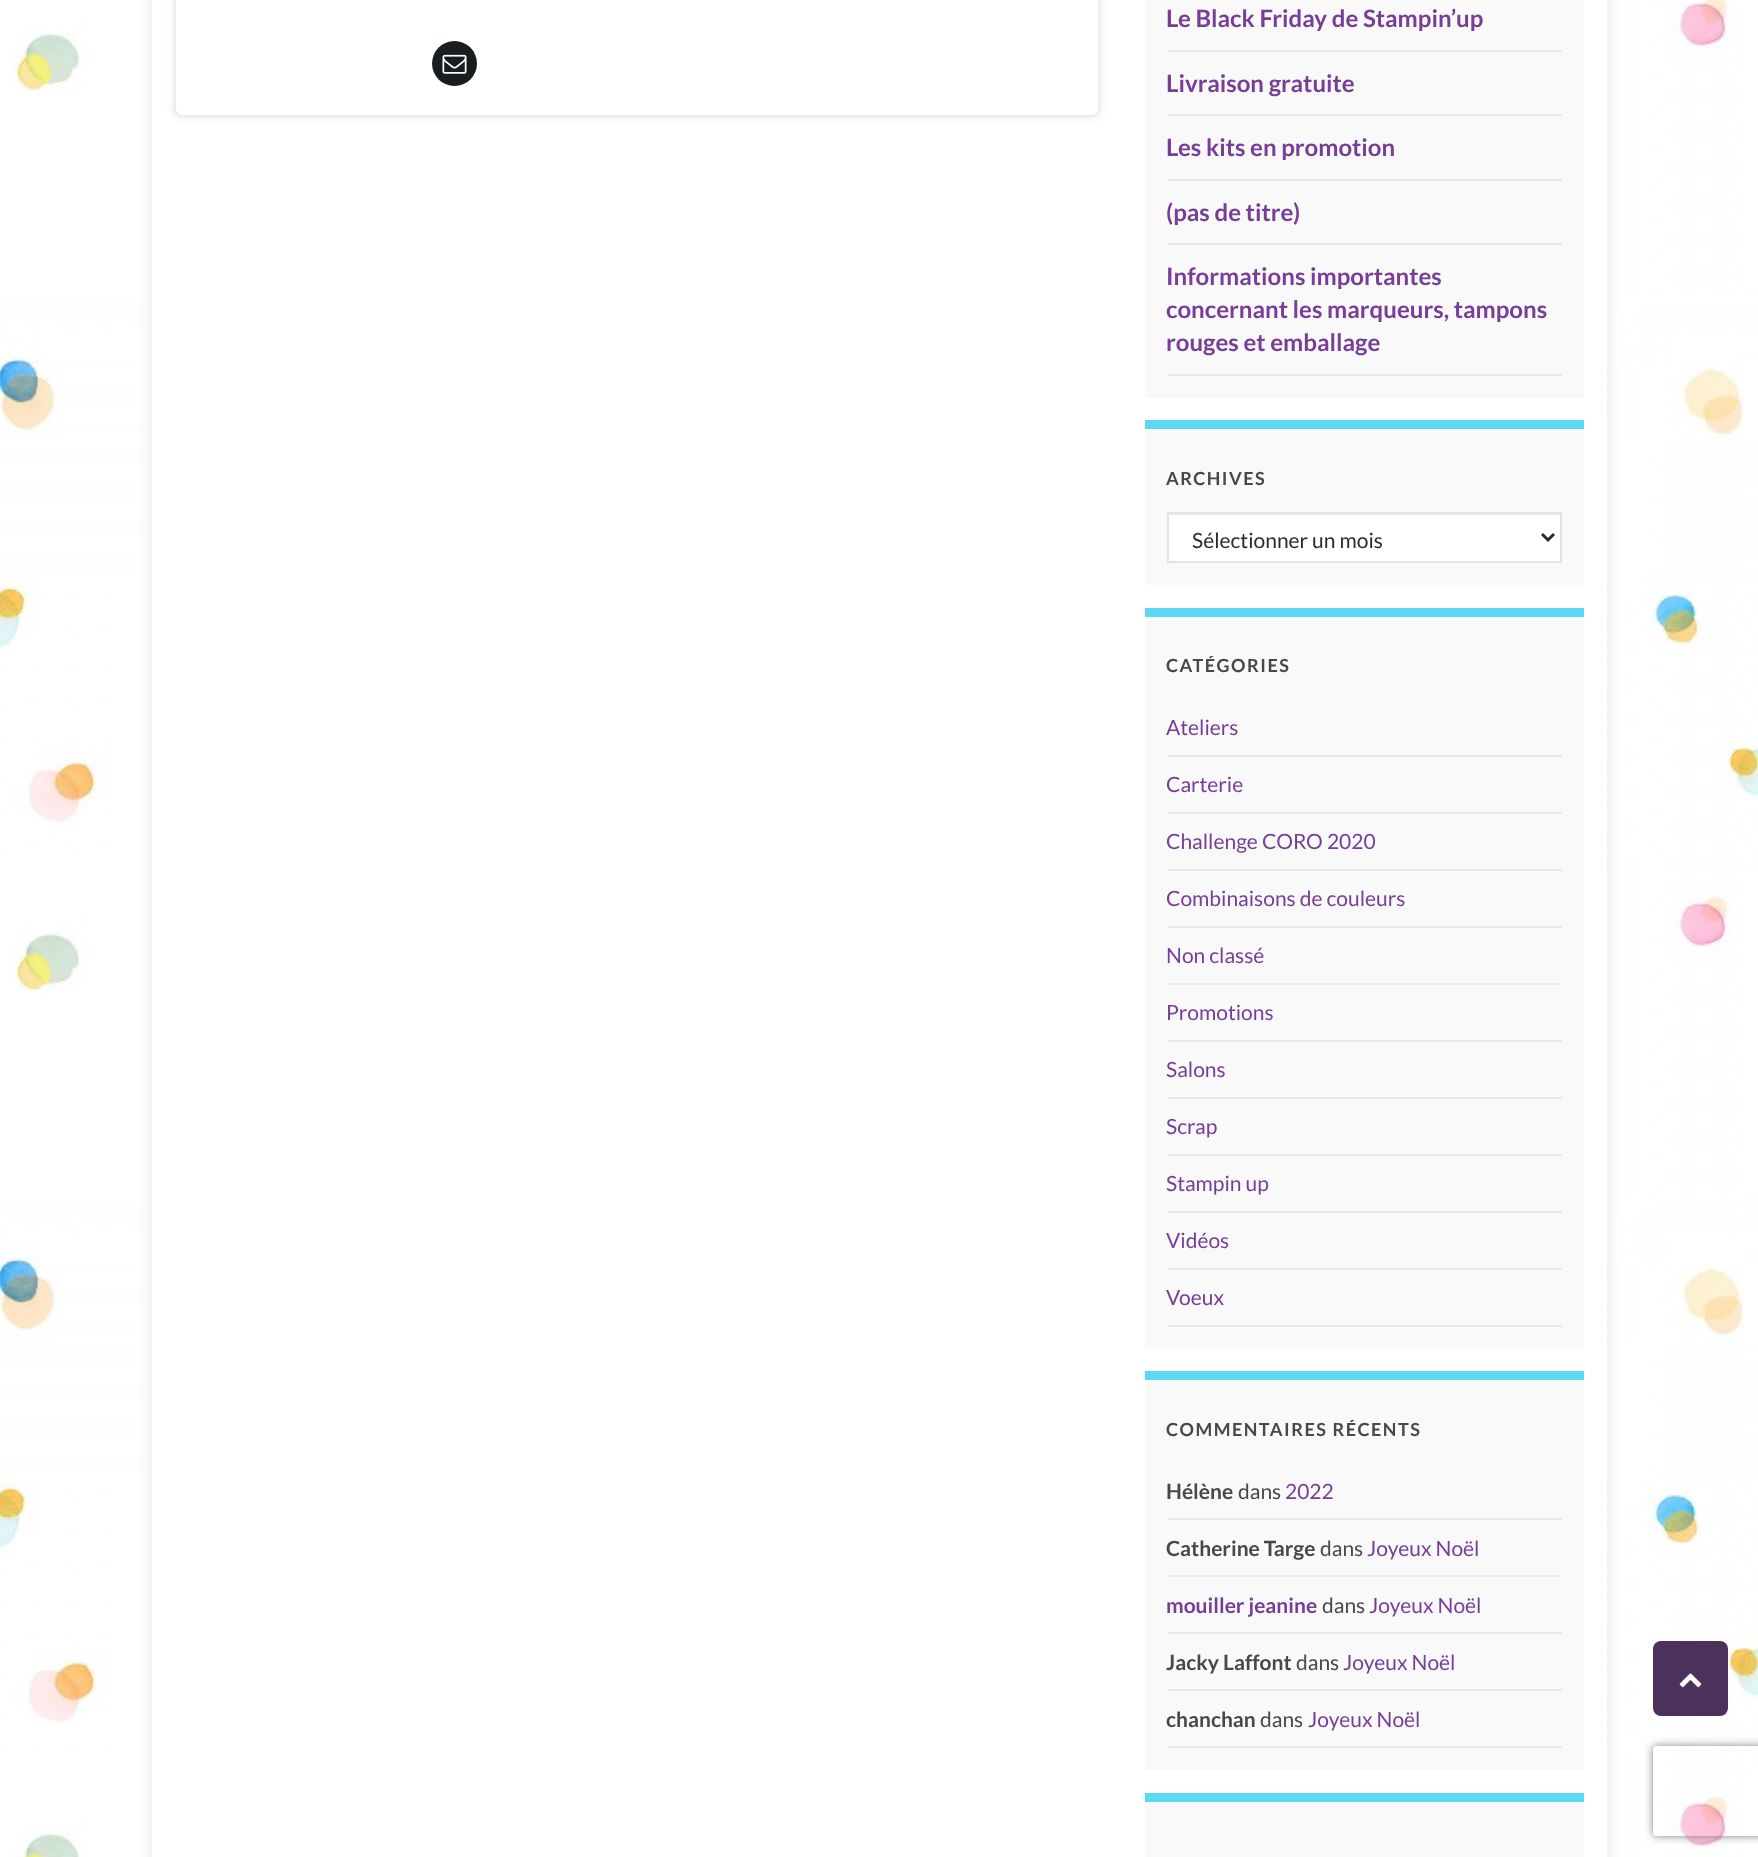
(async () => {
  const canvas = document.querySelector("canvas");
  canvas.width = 1758;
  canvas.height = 1857;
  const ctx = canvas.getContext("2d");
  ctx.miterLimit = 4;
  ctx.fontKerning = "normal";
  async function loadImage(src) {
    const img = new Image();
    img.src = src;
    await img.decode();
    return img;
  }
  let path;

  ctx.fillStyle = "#ffffff";
  ctx.fillRect(0, 0, 1758, 1857);
  ctx.drawImage(await loadImage("img/1.png"), 0, 0, 1758, 1857);
  ctx.fillStyle = "rgba(0, 0, 0, 0.1)";
  ctx.filter = "blur(7.5px)";
  ctx.beginPath();
  ctx.rect(152, -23, 1455, 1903);
  ctx.fill();
  ctx.filter = "none";
  ctx.fillStyle = "#ffffff";
  ctx.fillRect(152, 0, 1455, 1857);
  ctx.fillStyle = "rgba(0, 0, 0, 0.1)";
  ctx.filter = "blur(4px)";
  ctx.beginPath();
  ctx.roundRect(174, -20, 926, 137, 8);
  ctx.fill();
  ctx.filter = "none";
  ctx.fillStyle = "#ffffff";
  ctx.beginPath();
  ctx.roundRect(175, -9, 924, 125, 7);
  ctx.fill();
  ctx.strokeStyle = "#ebedf0";
  ctx.lineWidth = 2;
  ctx.stroke();
  ctx.fillStyle = "#181e1f";
  ctx.beginPath();
  ctx.arc(454.5, 63.5, 22.5, 0, Math.PI * 2);
  ctx.fill();
  ctx.drawImage(await loadImage("img/2.png"), 442, 54, 25, 20);
  for (const [x, y, w, h, color] of [
    [1145, 0, 439, 398, "#f9f9f9"],
    [1167, 50, 395, 2, "#e9e9e9"],
    [1167, 114, 395, 2, "#e9e9e9"],
    [1167, 179, 395, 2, "#e9e9e9"],
    [1167, 243, 395, 2, "#e9e9e9"],
    [1167, 374, 395, 2, "#e9e9e9"],
    [1145, 429, 439, 156, "#f9f9f9"],
    [1145, 420, 439, 9, "#5bd8f4"],
    [1169, 515, 391, 46, "#ffffff"],
    [1169, 514, 391, 1, "#ececec"],
  ]) {
    ctx.fillStyle = color;
    ctx.fillRect(x, y, w, h);
  }
  ctx.strokeStyle = "#e3e3e3";
  ctx.strokeRect(1168, 513, 393, 49);
  path = new Path2D("M1542 534L1548 540L1554 534");
  ctx.strokeStyle = "#2c2b2b";
  ctx.lineWidth = 3;
  ctx.stroke(path);
  for (const [x, y, w, h, color] of [
    [1145, 617, 439, 732, "#f9f9f9"],
    [1145, 608, 439, 9, "#5bd8f4"],
    [1167, 755, 395, 2, "#e9e9e9"],
    [1167, 812, 395, 2, "#e9e9e9"],
    [1167, 869, 395, 2, "#e9e9e9"],
    [1167, 926, 395, 2, "#e9e9e9"],
    [1167, 983, 395, 2, "#e9e9e9"],
    [1167, 1040, 395, 2, "#e9e9e9"],
    [1167, 1097, 395, 2, "#e9e9e9"],
    [1167, 1154, 395, 2, "#e9e9e9"],
    [1167, 1211, 395, 2, "#e9e9e9"],
    [1167, 1268, 395, 2, "#e9e9e9"],
    [1167, 1325, 395, 2, "#e9e9e9"],
    [1145, 1380, 439, 390, "#f9f9f9"],
    [1145, 1371, 439, 9, "#5bd8f4"],
    [1167, 1518, 395, 2, "#e9e9e9"],
    [1167, 1575, 395, 2, "#e9e9e9"],
    [1167, 1632, 395, 2, "#e9e9e9"],
    [1167, 1689, 395, 2, "#e9e9e9"],
    [1167, 1746, 395, 2, "#e9e9e9"],
    [1145, 1802, 439, 55, "#f9f9f9"],
    [1145, 1793, 439, 9, "#5bd8f4"],
  ]) {
    ctx.fillStyle = color;
    ctx.fillRect(x, y, w, h);
  }
  ctx.fillStyle = "#4c315a";
  ctx.beginPath();
  ctx.roundRect(1653, 1641, 75, 75, 8);
  ctx.fill();
  ctx.drawImage(await loadImage("img/3.png"), 1679, 1673, 23, 15);
  ctx.save();
  path = new Path2D("M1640 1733H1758V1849H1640ZM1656 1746H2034C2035.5 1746 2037 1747.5 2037 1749V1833C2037 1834.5 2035.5 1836 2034 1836H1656C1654.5 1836 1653 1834.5 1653 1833V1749C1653 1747.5 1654.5 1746 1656 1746Z");
  ctx.clip(path, "evenodd");
  ctx.fillStyle = "#808080";
  ctx.filter = "blur(4px)";
  ctx.beginPath();
  ctx.roundRect(1653, 1746, 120, 90, 3);
  ctx.fill();
  ctx.filter = "none";
  ctx.restore();
  ctx.font = "bold 24px Lato";
  ctx.fillStyle = "#783d98";
  for (const [text, x, y] of [
    ["Le Black Friday de Stampin’up", 1166, 27],
    ["Livraison gratuite", 1166, 92],
    ["Les kits en promotion", 1166, 156],
    ["(pas de titre)", 1166, 221],
    ["Informations importantes", 1166, 285],
    ["concernant les marqueurs, tampons", 1166, 318],
    ["rouges et emballage", 1166, 351],
  ]) {
    ctx.fillText(text, x, y);
  }
  ctx.letterSpacing = "1.5px";
  ctx.font = "bold 18px Lato";
  ctx.fillStyle = "#4a474b";
  ctx.fillText("ARCHIVES", 1166, 485);
  ctx.letterSpacing = "0px";
  ctx.font = "21px Lato";
  ctx.fillStyle = "#2c2b2b";
  ctx.fillText("Sélectionner un mois", 1192, 548);
  ctx.letterSpacing = "1.5px";
  ctx.font = "bold 18px Lato";
  ctx.fillStyle = "#4a474b";
  ctx.fillText("CATÉGORIES", 1166, 672);
  ctx.letterSpacing = "0px";
  ctx.font = "21px Lato";
  ctx.fillStyle = "#783d98";
  for (const [text, x, y] of [
    ["Ateliers", 1166, 735],
    ["Carterie", 1166, 792],
    ["Challenge CORO 2020", 1166, 849],
    ["Combinaisons de couleurs", 1166, 906],
    ["Non classé", 1166, 963],
    ["Promotions", 1166, 1020],
    ["Salons", 1166, 1077],
    ["Scrap", 1166, 1134],
    ["Stampin up", 1166, 1191],
    ["Vidéos", 1166, 1248],
    ["Voeux", 1166, 1305],
  ]) {
    ctx.fillText(text, x, y);
  }
  ctx.letterSpacing = "1.5px";
  ctx.font = "bold 18px Lato";
  ctx.fillStyle = "#4a474b";
  ctx.fillText("COMMENTAIRES RÉCENTS", 1166, 1436);
  ctx.letterSpacing = "0px";
  ctx.font = "bold 21px Lato";
  ctx.fillText("Hélène", 1166, 1499);
  ctx.font = "21px Lato";
  ctx.fillText("dans", 1238, 1499);
  ctx.fillStyle = "#783d98";
  ctx.fillText("2022", 1285, 1499);
  ctx.font = "bold 21px Lato";
  ctx.fillStyle = "#4a474b";
  ctx.fillText("Catherine Targe", 1166, 1556);
  ctx.font = "21px Lato";
  ctx.fillText("dans", 1320, 1556);
  ctx.fillStyle = "#783d98";
  ctx.fillText("Joyeux Noël", 1367, 1556);
  ctx.font = "bold 21px Lato";
  ctx.fillText("mouiller jeanine", 1166, 1613);
  ctx.font = "21px Lato";
  ctx.fillStyle = "#4a474b";
  ctx.fillText("dans", 1322, 1613);
  ctx.fillStyle = "#783d98";
  ctx.fillText("Joyeux Noël", 1369, 1613);
  ctx.font = "bold 21px Lato";
  ctx.fillStyle = "#4a474b";
  ctx.fillText("Jacky Laffont", 1166, 1670);
  ctx.font = "21px Lato";
  ctx.fillText("dans", 1296, 1670);
  ctx.fillStyle = "#783d98";
  ctx.fillText("Joyeux Noël", 1343, 1670);
  ctx.font = "bold 21px Lato";
  ctx.fillStyle = "#4a474b";
  ctx.fillText("chanchan", 1166, 1727);
  ctx.font = "21px Lato";
  ctx.fillText("dans", 1260, 1727);
  ctx.fillStyle = "#783d98";
  ctx.fillText("Joyeux Noël", 1308, 1727);
})();
